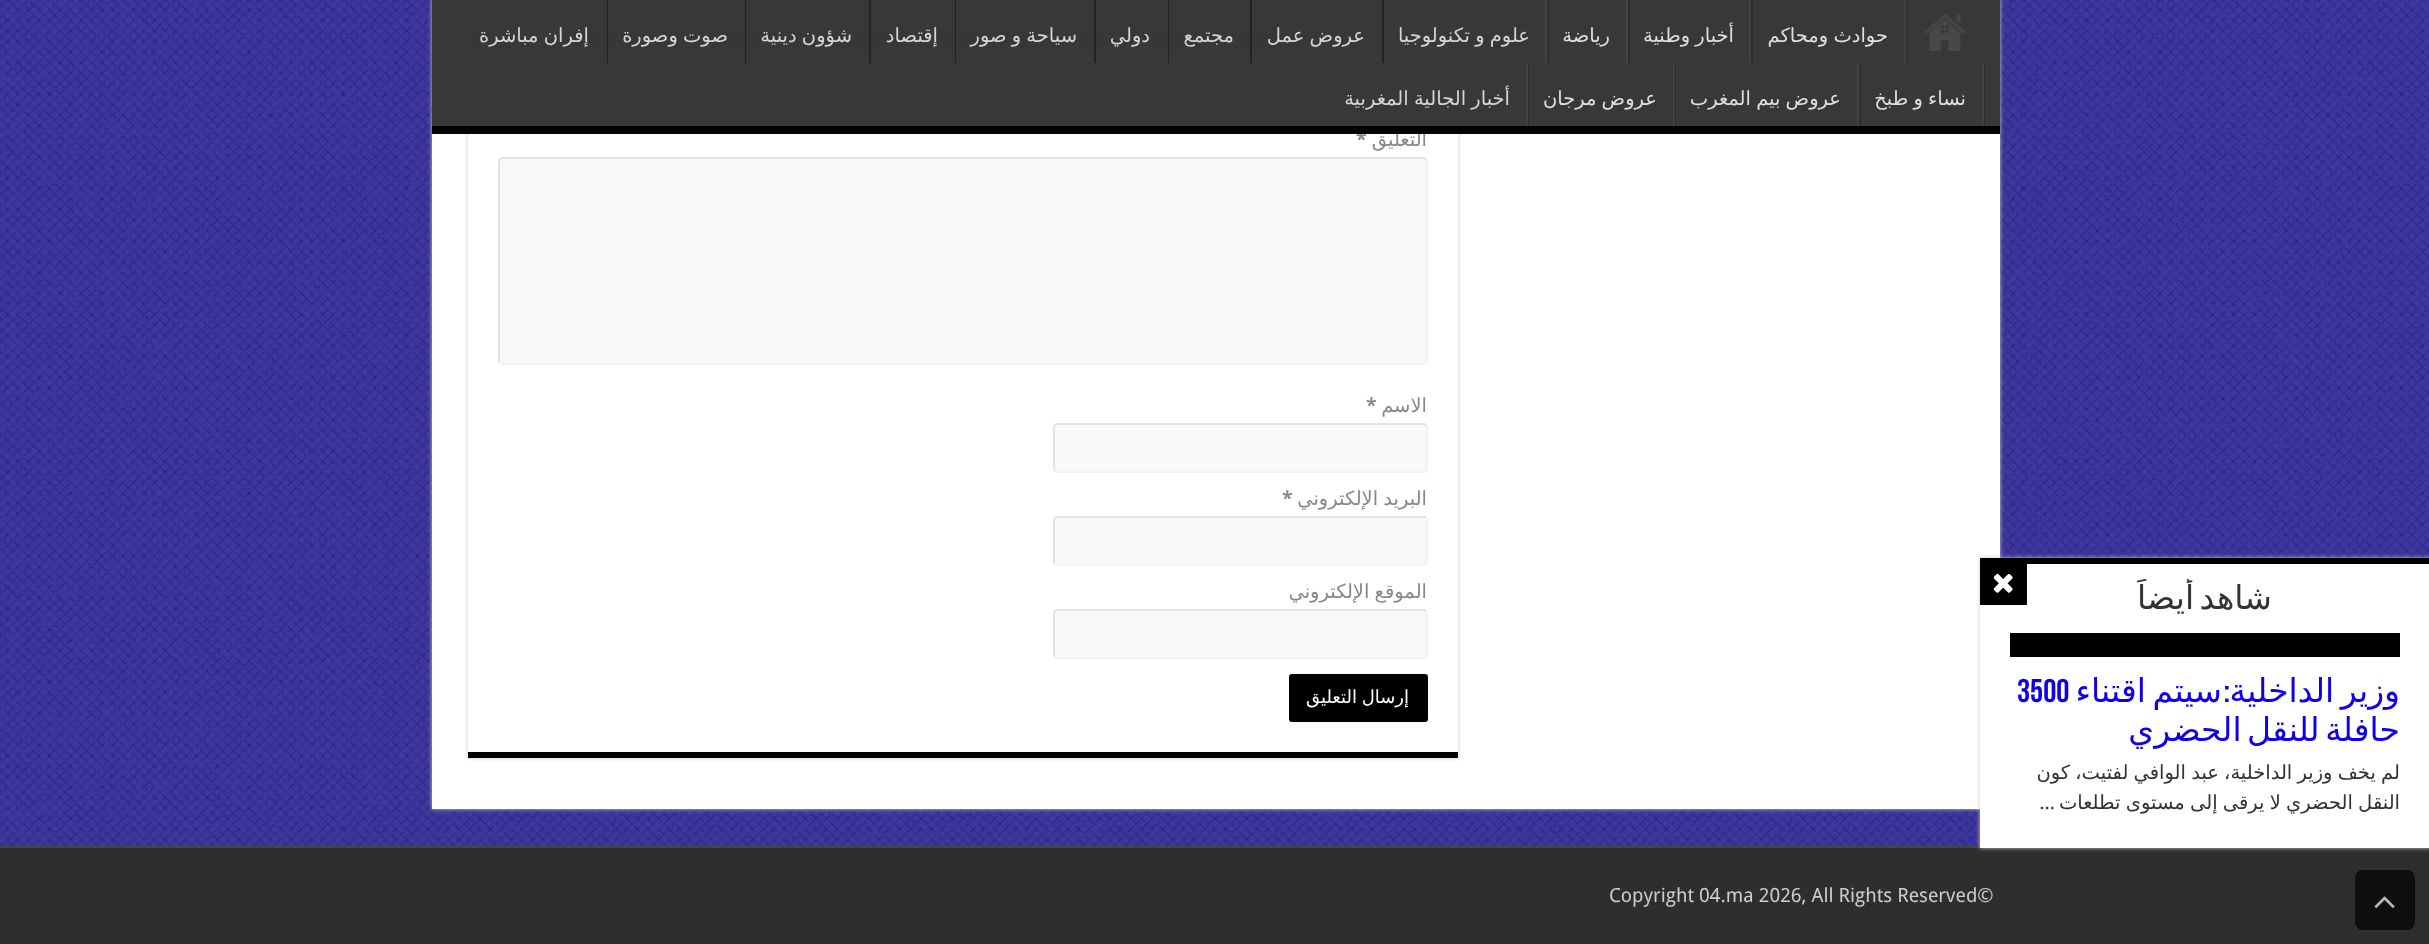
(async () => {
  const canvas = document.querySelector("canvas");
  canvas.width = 2429;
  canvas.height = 944;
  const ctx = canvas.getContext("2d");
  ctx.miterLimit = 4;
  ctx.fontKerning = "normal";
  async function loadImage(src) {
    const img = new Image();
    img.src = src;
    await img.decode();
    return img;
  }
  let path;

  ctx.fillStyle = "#090082";
  ctx.fillRect(0, 0, 2429, 944);
  ctx.drawImage(await loadImage("img/1.png"), 0, 0, 2429, 846);
  ctx.fillStyle = "#cacaca";
  ctx.filter = "blur(2px)";
  ctx.beginPath();
  ctx.rect(432, -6, 1568, 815);
  ctx.fill();
  ctx.filter = "none";
  for (const [x, y, w, h, color] of [
    [432, 0, 1568, 809, "#ffffff"],
    [0, 848, 2429, 96, "#2e2e2e"],
    [0, 846, 1980, 2, "#444444"],
  ]) {
    ctx.fillStyle = color;
    ctx.fillRect(x, y, w, h);
  }
  ctx.fillStyle = "#cacaca";
  ctx.filter = "blur(2px)";
  ctx.beginPath();
  ctx.rect(1980, 558, 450, 290);
  ctx.fill();
  ctx.filter = "none";
  for (const [x, y, w, h, color] of [
    [1980, 564, 449, 284, "#ffffff"],
    [1980, 558, 449, 6, "#000000"],
    [1980, 564, 47, 41, "#000000"],
  ]) {
    ctx.fillStyle = color;
    ctx.fillRect(x, y, w, h);
  }
  ctx.drawImage(await loadImage("img/3.png"), 1993, 573, 20, 20);
  ctx.fillRect(2010, 633, 390, 24);
  ctx.drawImage(await loadImage("img/4.png"), 468, 29, 833, 19);
  ctx.fillStyle = "#cacaca";
  ctx.filter = "blur(2px)";
  ctx.beginPath();
  ctx.rect(468, 62, 990, 696);
  ctx.fill();
  ctx.filter = "none";
  ctx.fillStyle = "#ffffff";
  ctx.fillRect(468, 62, 990, 690);
  ctx.fillStyle = "#000000";
  ctx.fillRect(468, 752, 990, 6);
  ctx.fillStyle = "#f9f9f9";
  ctx.beginPath();
  ctx.roundRect(498, 158, 930, 207, 5);
  ctx.fill();
  path = new Path2D("M1426 159.5C1427 160 1427 161 1427 162V360C1427 361 1427 362 1426 362.5C1425.5 363.5 1424.5 364 1423.5 364H502.5C501.5 364 500.5 363.5 500 362.5");
  ctx.strokeStyle = "#f1f1f1";
  ctx.lineWidth = 1.5;
  ctx.stroke(path);
  path = new Path2D("M500 362.5C499 362 499 361 499 360V162C499 161 499 160 500 159.5C500.5 158.5 501.5 158 502.5 158H1423.5C1424.5 158 1425.5 158.5 1426 159.5");
  ctx.strokeStyle = "#dddddd";
  ctx.stroke(path);
  ctx.beginPath();
  ctx.roundRect(1053, 423, 375, 50, 5);
  ctx.fill();
  path = new Path2D("M1426 425C1427 425.5 1427 426.5 1427 427.5V468C1427 469 1427 470 1426 470.5C1425.5 471.5 1424.5 472 1423.5 472H1057.5C1056.5 472 1055.5 471.5 1055 470.5");
  ctx.strokeStyle = "#f1f1f1";
  ctx.stroke(path);
  path = new Path2D("M1055 470.5C1054 470 1054 469 1054 468V427.5C1054 426.5 1054 425.5 1055 425C1055.5 424 1056.5 424 1057.5 424H1423.5C1424.5 424 1425.5 424 1426 425");
  ctx.strokeStyle = "#dddddd";
  ctx.stroke(path);
  ctx.beginPath();
  ctx.roundRect(1053, 516, 375, 50, 5);
  ctx.fill();
  path = new Path2D("M1426 518C1427 518.5 1427 519.5 1427 520.5V561C1427 562 1427 563 1426 563.5C1425.5 564.5 1424.5 565 1423.5 565H1057.5C1056.5 565 1055.5 564.5 1055 563.5");
  ctx.strokeStyle = "#f1f1f1";
  ctx.stroke(path);
  path = new Path2D("M1055 563.5C1054 563 1054 562 1054 561V520.5C1054 519.5 1054 518.5 1055 518C1055.5 517 1056.5 517 1057.5 517H1423.5C1424.5 517 1425.5 517 1426 518");
  ctx.strokeStyle = "#dddddd";
  ctx.stroke(path);
  ctx.beginPath();
  ctx.roundRect(1053, 609, 375, 50, 5);
  ctx.fill();
  path = new Path2D("M1426 611C1427 611.5 1427 612.5 1427 613.5V654C1427 655 1427 656 1426 656.5C1425.5 657.5 1424.5 658 1423.5 658H1057.5C1056.5 658 1055.5 657.5 1055 656.5");
  ctx.strokeStyle = "#f1f1f1";
  ctx.stroke(path);
  path = new Path2D("M1055 656.5C1054 656 1054 655 1054 654V613.5C1054 612.5 1054 611.5 1055 611C1055.5 610 1056.5 610 1057.5 610H1423.5C1424.5 610 1425.5 610 1426 611");
  ctx.strokeStyle = "#dddddd";
  ctx.stroke(path);
  ctx.fillStyle = "#000000";
  ctx.beginPath();
  ctx.roundRect(1289, 674, 139, 48, 3);
  ctx.fill();
  ctx.fillStyle = "#0e0e0e";
  ctx.beginPath();
  ctx.roundRect(2355, 870, 60, 60, 8);
  ctx.fill();
  ctx.drawImage(await loadImage("img/5.png"), 2374, 896, 21, 12);
  ctx.save();
  ctx.beginPath();
  ctx.rect(2010, 579, 390, 54);
  ctx.clip();
  ctx.wordSpacing = "-5px";
  ctx.direction = "rtl";
  ctx.font = "33px DejaVu Sans";
  ctx.fillStyle = "#333333";
  ctx.fillText("شاهد أيضاً", 2272, 609);
  ctx.restore();
  ctx.wordSpacing = "-4px";
  ctx.direction = "rtl";
  ctx.font = "33px DejaVu Sans";
  ctx.fillStyle = "#1000ed";
  ctx.fillText("وزير الداخلية", 2400, 702);
  ctx.wordSpacing = "0px";
  ctx.font = "bold 33px Bebas Neue";
  ctx.fillText(":", 2230, 702);
  ctx.wordSpacing = "-4px";
  ctx.font = "33px DejaVu Sans";
  ctx.fillText("سيتم اقتناء", 2222, 702);
  ctx.wordSpacing = "0px";
  ctx.direction = "ltr";
  ctx.font = "bold 33px Bebas Neue";
  ctx.fillText("3500", 2017, 702);
  ctx.wordSpacing = "-5px";
  ctx.direction = "rtl";
  ctx.font = "33px DejaVu Sans";
  ctx.fillText("حافلة للنقل الحضري", 2400, 741);
  ctx.wordSpacing = "-1px";
  ctx.font = "19.5px DejaVu Sans";
  ctx.fillStyle = "#333333";
  ctx.fillText("لم يخف وزير الداخلية، عبد الوافي لفتيت، كون", 2400, 779);
  ctx.fillText("النقل الحضري لا يرقى إلى مستوى تطلعات", 2400, 809);
  ctx.wordSpacing = "0px";
  ctx.font = "19.5px Droid Sans";
  ctx.fillText("...", 2055, 809);
  ctx.font = "19.5px DejaVu Sans";
  ctx.fillStyle = "#888888";
  ctx.fillText("التعليق", 1427, 146);
  ctx.direction = "ltr";
  ctx.font = "bold 19.5px Droid Sans";
  ctx.fillText("*", 1356, 146);
  ctx.fillStyle = "rgba(45, 45, 45, 0.95)";
  ctx.fillRect(432, 0, 1568, 134);
  ctx.wordSpacing = "-1px";
  ctx.direction = "rtl";
  ctx.font = "19.5px DejaVu Sans";
  ctx.fillStyle = "#d5d5d5";
  ctx.fillText("أخبار الجالية المغربية", 1510, 105);
  ctx.save();
  ctx.beginPath();
  ctx.rect(432, 0, 1568, 126);
  ctx.clip();
  ctx.fillStyle = "#393939";
  path = new Path2D("M284-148H2148V274H284ZM430-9H1998C1999-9 2000-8 2000-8V118C2000 119 1999 120 1998 120H430C430 120 429 119 429 118V-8C429-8 430-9 430-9Z");
  ctx.fill(path, "evenodd");
  ctx.restore();
  ctx.fillStyle = "#424242";
  ctx.fillRect(1526, 63, 2, 63);
  ctx.fillStyle = "#2d2d2d";
  ctx.fillRect(1528, 63, 1, 63);
  ctx.fillStyle = "#dfdfdf";
  ctx.fillText("عروض مرجان", 1657, 105);
  ctx.fillStyle = "#424242";
  ctx.fillRect(1673, 63, 2, 63);
  ctx.fillStyle = "#2d2d2d";
  ctx.fillRect(1675, 63, 1, 63);
  ctx.fillStyle = "#dfdfdf";
  ctx.fillText("عروض بيم المغرب", 1841, 105);
  ctx.fillStyle = "#424242";
  ctx.fillRect(1857, 63, 2, 63);
  ctx.fillStyle = "#2d2d2d";
  ctx.fillRect(1859, 63, 2, 63);
  ctx.fillStyle = "#dfdfdf";
  ctx.fillText("نساء و طبخ", 1966, 105);
  ctx.fillStyle = "#424242";
  ctx.fillRect(1982, 63, 2, 63);
  ctx.fillStyle = "#2d2d2d";
  ctx.fillRect(1984, 63, 1, 63);
  ctx.fillStyle = "#d5d5d5";
  ctx.fillText("إفران مباشرة", 589, 42);
  ctx.fillStyle = "#232323";
  ctx.fillRect(606, 0, 2, 63);
  ctx.fillStyle = "rgba(56, 56, 56, 0.95)";
  ctx.fillRect(606, 0, 1, 63);
  ctx.fillStyle = "#d5d5d5";
  ctx.fillText("صوت وصورة", 728, 42);
  ctx.fillStyle = "#232323";
  ctx.fillRect(744, 0, 2, 63);
  ctx.fillStyle = "rgba(56, 56, 56, 0.95)";
  ctx.fillRect(744, 0, 1, 63);
  ctx.fillStyle = "#d5d5d5";
  ctx.fillText("شؤون دينية", 852, 42);
  ctx.fillStyle = "#232323";
  ctx.fillRect(869, 0, 2, 63);
  ctx.wordSpacing = "0px";
  ctx.fillStyle = "#d5d5d5";
  ctx.fillText("إقتصاد", 938, 42);
  ctx.fillStyle = "#232323";
  ctx.fillRect(954, 0, 2, 63);
  ctx.fillStyle = "rgba(56, 56, 56, 0.95)";
  ctx.fillRect(954, 0, 1, 63);
  ctx.wordSpacing = "-1px";
  ctx.fillStyle = "#d5d5d5";
  ctx.fillText("سياحة و صور", 1077, 42);
  ctx.fillStyle = "#232323";
  ctx.fillRect(1094, 0, 2, 63);
  ctx.wordSpacing = "0px";
  ctx.fillStyle = "#d5d5d5";
  ctx.fillText("دولي", 1150, 42);
  ctx.fillStyle = "#232323";
  ctx.fillRect(1167, 0, 2, 63);
  ctx.fillStyle = "rgba(56, 56, 56, 0.95)";
  ctx.fillRect(1167, 0, 1, 63);
  ctx.fillStyle = "#d5d5d5";
  ctx.fillText("مجتمع", 1234, 42);
  ctx.fillStyle = "#232323";
  ctx.fillRect(1250, 0, 2, 63);
  ctx.wordSpacing = "-1px";
  ctx.fillStyle = "#d5d5d5";
  ctx.fillText("عروض عمل", 1365, 42);
  ctx.fillStyle = "rgba(34, 34, 34, 0.95)";
  ctx.fillRect(1382, 0, 2, 63);
  ctx.fillStyle = "#d5d5d5";
  ctx.fillText("علوم و تكنولوجيا", 1530, 42);
  ctx.fillStyle = "#424242";
  ctx.fillRect(1545, 0, 2, 63);
  ctx.fillStyle = "#2d2d2d";
  ctx.fillRect(1547, 0, 2, 63);
  ctx.wordSpacing = "0px";
  ctx.fillStyle = "#dfdfdf";
  ctx.fillText("رياضة", 1610, 42);
  ctx.fillStyle = "#424242";
  ctx.fillRect(1626, 0, 2, 63);
  ctx.fillStyle = "#2d2d2d";
  ctx.fillRect(1628, 0, 2, 63);
  ctx.wordSpacing = "-1px";
  ctx.fillStyle = "#dfdfdf";
  ctx.fillText("أخبار وطنية", 1734, 42);
  ctx.fillStyle = "#424242";
  ctx.fillRect(1749, 0, 2, 63);
  ctx.fillStyle = "#2d2d2d";
  ctx.fillRect(1751, 0, 2, 63);
  ctx.fillStyle = "#dfdfdf";
  ctx.fillText("حوادث ومحاكم", 1888, 42);
  ctx.fillStyle = "#424242";
  ctx.fillRect(1904, 0, 2, 63);
  ctx.fillStyle = "#2d2d2d";
  ctx.fillRect(1906, 0, 1, 63);
  ctx.drawImage(await loadImage("img/2.png"), 1923, 13, 44, 38);
  ctx.fillStyle = "rgba(0, 0, 0, 0.95)";
  ctx.fillRect(432, 126, 1568, 8);
  ctx.wordSpacing = "0px";
  ctx.fillStyle = "#888888";
  ctx.fillText("الاسم", 1427, 412);
  ctx.direction = "ltr";
  ctx.font = "bold 19.5px Droid Sans";
  ctx.fillText("*", 1366, 412);
  ctx.wordSpacing = "-1px";
  ctx.direction = "rtl";
  ctx.font = "19.5px DejaVu Sans";
  ctx.fillText("البريد الإلكتروني", 1427, 505);
  ctx.wordSpacing = "0px";
  ctx.direction = "ltr";
  ctx.font = "bold 19.5px Droid Sans";
  ctx.fillText("*", 1282, 505);
  ctx.wordSpacing = "-1px";
  ctx.direction = "rtl";
  ctx.font = "19.5px DejaVu Sans";
  ctx.fillText("الموقع الإلكتروني", 1427, 598);
  ctx.font = "18px DejaVu Sans";
  ctx.fillStyle = "#ffffff";
  ctx.fillText("إرسال التعليق", 1409, 703);
  ctx.wordSpacing = "0px";
  ctx.direction = "ltr";
  ctx.font = "19.5px Droid Sans";
  ctx.fillStyle = "#cccccc";
  ctx.fillText("Copyright 04.ma 2026, All Rights Reserved©", 1609, 902);
})();
